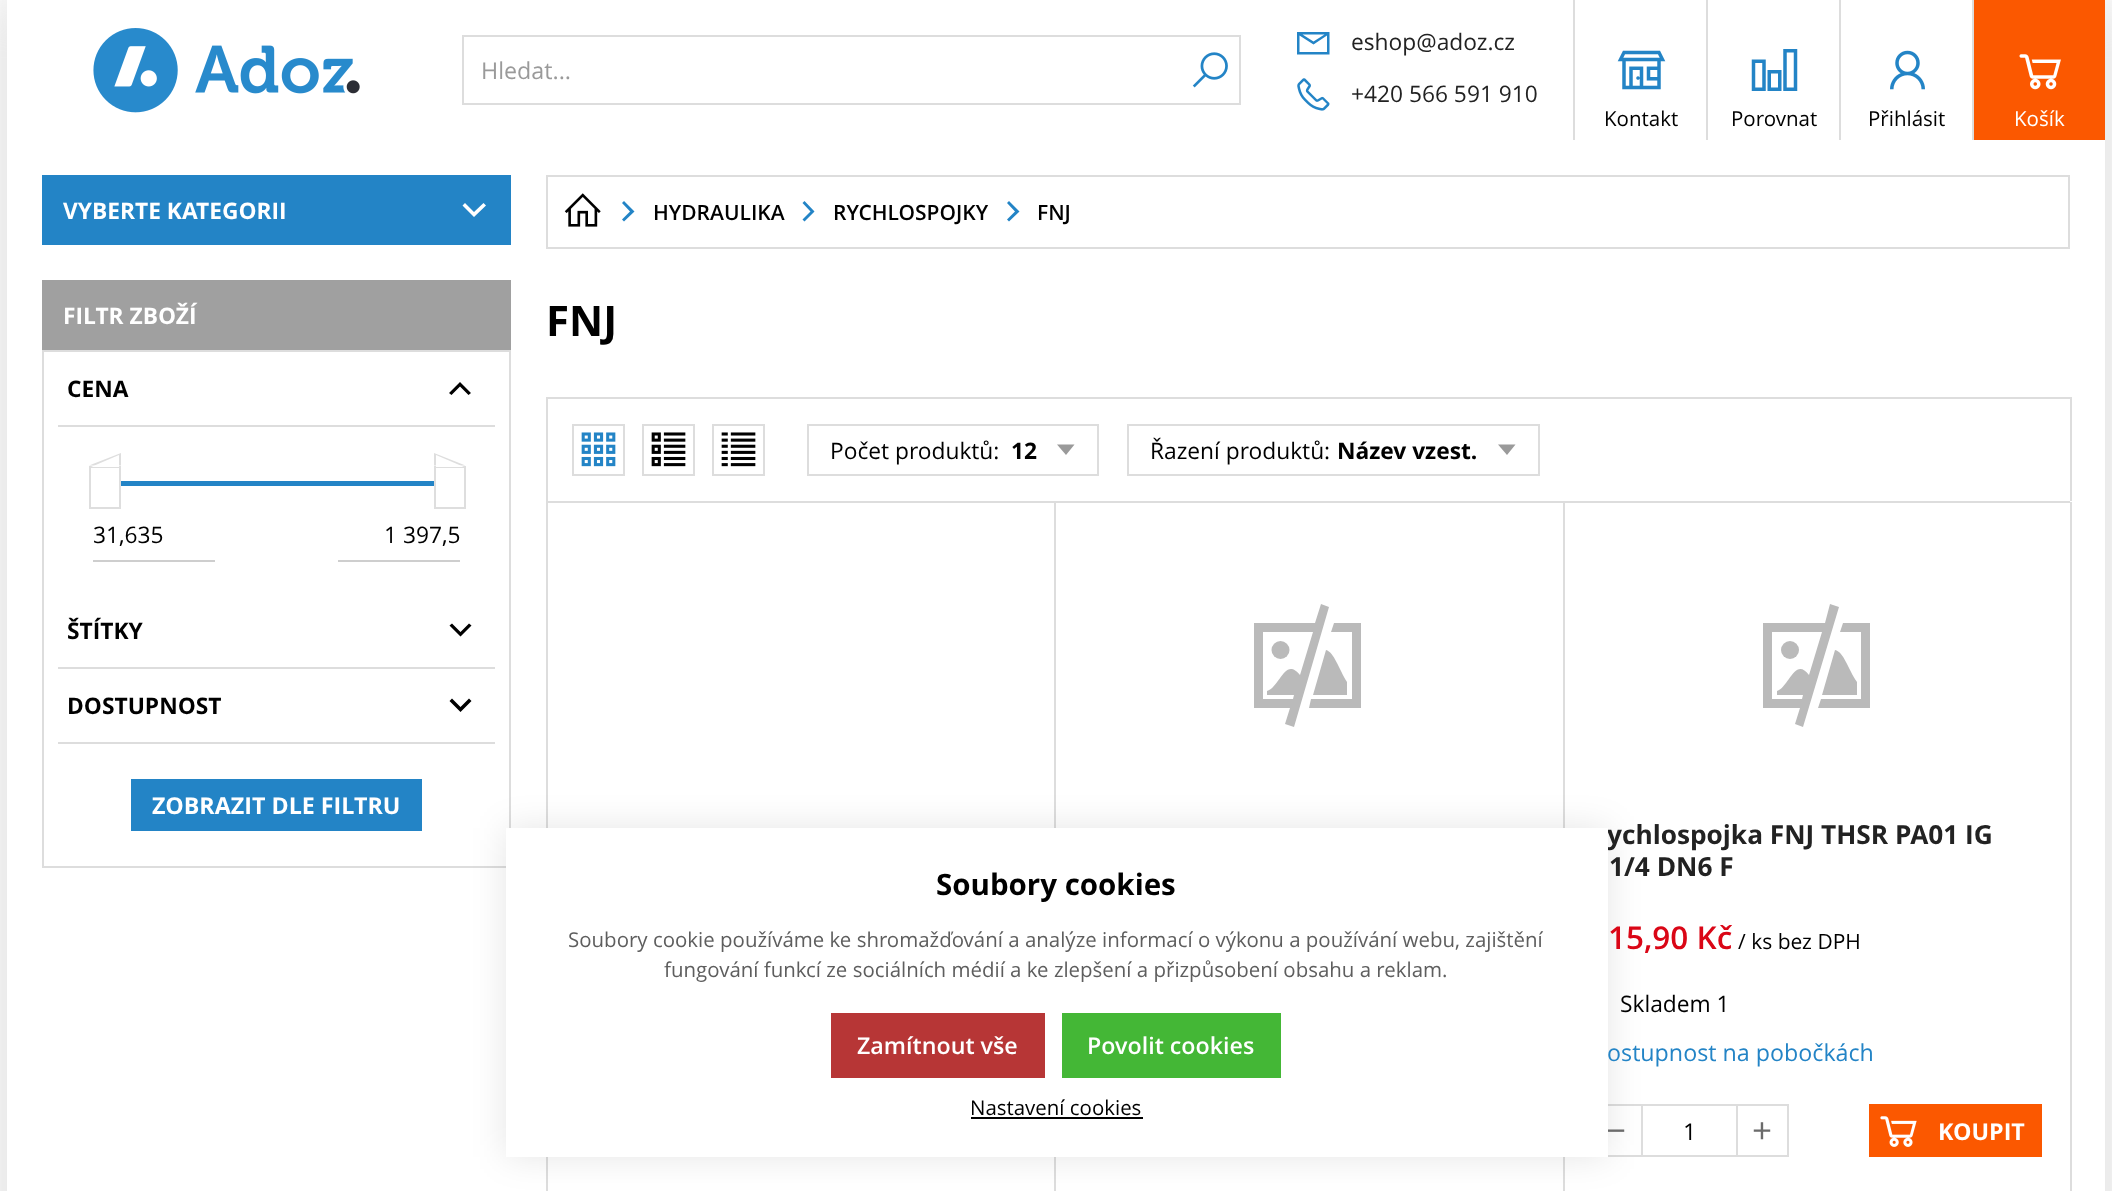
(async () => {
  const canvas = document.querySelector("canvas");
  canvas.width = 2112;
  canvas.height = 1191;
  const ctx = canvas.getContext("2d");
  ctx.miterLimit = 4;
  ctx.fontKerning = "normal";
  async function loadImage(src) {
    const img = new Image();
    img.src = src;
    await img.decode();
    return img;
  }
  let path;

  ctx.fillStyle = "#ffffff";
  ctx.fillRect(0, 0, 2112, 1191);
  ctx.save();
  path = new Path2D("M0 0H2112V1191H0ZM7 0H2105V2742H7Z");
  ctx.clip(path, "evenodd");
  ctx.fillStyle = "#dddddd";
  ctx.filter = "blur(28px)";
  ctx.beginPath();
  ctx.rect(0, -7, 2112, 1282);
  ctx.fill();
  ctx.filter = "none";
  ctx.restore();
  ctx.drawImage(await loadImage("img/1.png"), 93, 28, 267, 85);
  ctx.strokeStyle = "#dddddd";
  ctx.lineWidth = 2;
  ctx.strokeRect(463, 36, 777, 68);
  ctx.drawImage(await loadImage("img/2.png"), 1192, 52, 36, 36);
  ctx.fillStyle = "#2384c6";
  path = new Path2D("M1297 32V54.5H1329.5V32ZM1324.5 34.5L1313.5 41.5L1302.5 34.5ZM1299.5 52V35.5L1313.5 44.5L1327 35.5V52Z");
  ctx.fill(path);
  ctx.drawImage(await loadImage("img/3.png"), 1297, 78, 33, 33);
  ctx.fillStyle = "#dddddd";
  ctx.fillRect(1573, 0, 2, 140);
  ctx.drawImage(await loadImage("img/4.png"), 1617, 50, 49, 40);
  ctx.fillRect(1706, 0, 2, 140);
  ctx.drawImage(await loadImage("img/5.png"), 1751, 49, 47, 42);
  ctx.fillRect(1839, 0, 2, 140);
  ctx.drawImage(await loadImage("img/6.png"), 1890, 50, 35, 40);
  ctx.fillStyle = "#fb5800";
  ctx.fillRect(1974, 0, 131, 140);
  ctx.fillStyle = "#dddddd";
  ctx.fillRect(1972, 0, 2, 140);
  ctx.drawImage(await loadImage("img/7.png"), 2019, 54, 42, 36);
  ctx.fillStyle = "#2384c6";
  ctx.fillRect(42, 175, 469, 70);
  ctx.fillStyle = "#ffffff";
  path = new Path2D("M486 205.5L474 217L462.5 205.5L465 203L474 212L483.5 203Z");
  ctx.fill(path);
  ctx.fillStyle = "#a0a0a0";
  ctx.fillRect(42, 280, 469, 70);
  ctx.strokeRect(43, 351, 467, 516);
  ctx.fillStyle = "#dddddd";
  ctx.fillRect(58, 425, 437, 2);
  ctx.fillStyle = "#000000";
  path = new Path2D("M449 393L460 382L471 393L468.5 395L460 386.5L451.5 395Z");
  ctx.fill(path);
  ctx.fillStyle = "#2384c6";
  ctx.fillRect(119, 481, 315, 5);
  ctx.strokeStyle = "#dedede";
  ctx.strokeRect(90, 467, 30, 41);
  ctx.fillStyle = "#dedede";
  path = new Path2D("M121 465.5H89L121 453Z");
  ctx.fill(path);
  ctx.fillStyle = "#ffffff";
  path = new Path2D("M119 467H91L119 455Z");
  ctx.fill(path);
  ctx.strokeRect(435, 467, 30, 41);
  ctx.fillStyle = "#dedede";
  path = new Path2D("M465.5 465.5H434V453Z");
  ctx.fill(path);
  ctx.fillStyle = "#ffffff";
  path = new Path2D("M464 467H436V455Z");
  ctx.fill(path);
  for (const [x, y, w, h, color] of [
    [93, 560, 122, 2, "#cecece"],
    [338, 560, 122, 2, "#cecece"],
    [58, 667, 437, 2, "#dddddd"],
  ]) {
    ctx.fillStyle = color;
    ctx.fillRect(x, y, w, h);
  }
  ctx.fillStyle = "#000000";
  path = new Path2D("M471.5 625.5L460.5 636.5L449.5 625.5L452 623.5L460.5 632L469 623.5Z");
  ctx.fill(path);
  path = new Path2D("M471.5 701L460.5 712L449.5 701L452 698.5L460.5 707L469 698.5Z");
  ctx.fill(path);
  ctx.fillStyle = "#dddddd";
  ctx.fillRect(58, 742, 437, 2);
  ctx.fillStyle = "#2384c6";
  ctx.fillRect(131, 779, 291, 52);
  ctx.strokeStyle = "#dddddd";
  ctx.strokeRect(547, 176, 1522, 72);
  ctx.drawImage(await loadImage("img/8.png"), 564, 193, 37, 34);
  path = new Path2D("M624 201L634.5 211.5L624 221.5L622 219.5L630 211.5L622 203Z");
  ctx.fill(path);
  path = new Path2D("M804.5 201L814.5 211.5L804.5 221.5L802.5 219.5L810.5 211.5L802.5 203Z");
  ctx.fill(path);
  path = new Path2D("M1009 201L1019.5 211.5L1009 221.5L1007 219.5L1015 211.5L1007 203Z");
  ctx.fill(path);
  for (const [x, y, w, h, color] of [
    [546, 397, 1526, 2, "#dddddd"],
    [2070, 397, 2, 104, "#dddddd"],
    [546, 397, 2, 104, "#dddddd"],
  ]) {
    ctx.fillStyle = color;
    ctx.fillRect(x, y, w, h);
  }
  ctx.strokeRect(573, 425, 51, 50);
  ctx.drawImage(await loadImage("img/9.png"), 581, 432, 35, 35);
  ctx.strokeRect(643, 425, 51, 50);
  ctx.drawImage(await loadImage("img/10.png"), 651, 432, 35, 35);
  ctx.strokeRect(713, 425, 51, 50);
  ctx.drawImage(await loadImage("img/11.png"), 721, 432, 35, 35);
  ctx.fillStyle = "#9a9a9a";
  path = new Path2D("M1066 455L1057 444.5H1074.5Z");
  ctx.fill(path);
  ctx.strokeRect(808, 425, 290, 50);
  path = new Path2D("M1507 455L1498 444.5H1515.5Z");
  ctx.fill(path);
  ctx.strokeRect(1128, 425, 411, 50);
  for (const [x, y, w, h, color] of [
    [546, 501, 1524, 2, "#dddddd"],
    [1054, 502, 2, 689, "#dddddd"],
    [546, 502, 2, 689, "#dddddd"],
  ]) {
    ctx.fillStyle = color;
    ctx.fillRect(x, y, w, h);
  }
  ctx.fillStyle = "#bababa";
  ctx.beginPath();
  ctx.arc(1280.5, 650, 9, 0, Math.PI * 2);
  ctx.fill();
  path = new Path2D("M1334 623L1331 632H1352V699H1311L1309 708H1361V623Z");
  ctx.fill(path);
  path = new Path2D("M1313 695H1347V682C1339 669 1334 652 1326 650Z");
  ctx.fill(path);
  path = new Path2D("M1321 604L1315 623H1254V708H1290L1285 724L1294 727L1329 607ZM1300 675C1285 656 1280 687 1267 691V695H1294L1293 699H1263V632H1313Z");
  ctx.fill(path);
  ctx.fillStyle = "#dddddd";
  ctx.fillRect(1563, 502, 2, 689);
  ctx.fillStyle = "#bababa";
  ctx.beginPath();
  ctx.arc(1790, 650, 9, 0, Math.PI * 2);
  ctx.fill();
  path = new Path2D("M1843 623L1840 632H1861V699H1821L1818 708H1870V623Z");
  ctx.fill(path);
  path = new Path2D("M1822 695H1857V682C1848 669 1844 652 1835 650Z");
  ctx.fill(path);
  path = new Path2D("M1830 604L1825 623H1763V708H1800L1795 724L1803 727L1839 607ZM1809 675C1795 656 1789 687 1777 691V695H1803L1802 699H1772V632H1822Z");
  ctx.fill(path);
  ctx.fillStyle = "#dddddd";
  ctx.fillRect(2070, 502, 2, 689);
  ctx.strokeRect(1592, 1105, 50, 51);
  ctx.fillRect(1643, 1104, 93, 2);
  ctx.fillRect(1643, 1155, 93, 2);
  ctx.strokeRect(1737, 1105, 51, 51);
  ctx.fillStyle = "#fb5800";
  ctx.fillRect(1869, 1104, 173, 53);
  ctx.drawImage(await loadImage("img/12.png"), 1880, 1116, 37, 31);
  ctx.fillStyle = "rgba(0, 0, 0, 0.1)";
  ctx.filter = "blur(17.5px)";
  ctx.beginPath();
  ctx.rect(506, 828, 1102, 329);
  ctx.fill();
  ctx.filter = "none";
  ctx.font = "23.25px Open Sans";
  ctx.fillStyle = "#9a9a9a";
  ctx.fillText("Hledat...", 481, 79);
  ctx.font = "22.75px Open Sans";
  ctx.fillStyle = "#222222";
  ctx.fillText("eshop@adoz.cz", 1351, 50);
  ctx.fillText("+420 566 591 910", 1351, 102);
  ctx.font = "20.5px Open Sans";
  ctx.fillStyle = "#000000";
  for (const [text, x, y] of [
    ["Kontakt", 1604, 126],
    ["Porovnat", 1731, 126],
    ["Přihlásit", 1868, 126],
  ]) {
    ctx.fillText(text, x, y);
  }
  ctx.fillStyle = "#ffffff";
  ctx.fillText("Košík", 2014, 126);
  ctx.font = "bold 22.75px Open Sans";
  ctx.fillText("VYBERTE KATEGORII", 63, 219);
  ctx.fillText("FILTR ZBOŽÍ", 63, 324);
  ctx.fillStyle = "#000000";
  ctx.fillText("CENA", 67, 397);
  ctx.font = "22.75px Open Sans";
  ctx.fillText("31,635", 93, 543);
  ctx.fillText("1 397,5", 384, 543);
  ctx.font = "bold 22.75px Open Sans";
  ctx.fillText("ŠTÍTKY", 67, 639);
  ctx.fillText("DOSTUPNOST", 67, 714);
  ctx.font = "bold 23.25px Open Sans";
  ctx.fillStyle = "#ffffff";
  ctx.fillText("ZOBRAZIT DLE FILTRU", 152, 814);
  ctx.font = "600 21px Open Sans";
  ctx.fillStyle = "#000000";
  for (const [text, x, y] of [
    ["HYDRAULIKA", 653, 220],
    ["RYCHLOSPOJKY", 833, 220],
    ["FNJ", 1037, 220],
  ]) {
    ctx.fillText(text, x, y);
  }
  ctx.font = "bold 42px Open Sans";
  ctx.fillText("FNJ", 546, 336);
  ctx.font = "22.75px Open Sans";
  ctx.fillText("Počet produktů:", 830, 459);
  ctx.font = "bold 22.75px Open Sans";
  ctx.fillText("12", 1011, 459);
  ctx.font = "22.75px Open Sans";
  ctx.fillText("Řazení produktů:", 1150, 459);
  ctx.font = "bold 22.75px Open Sans";
  ctx.fillText("Název vzest.", 1337, 459);
  ctx.font = "bold 26.25px Open Sans";
  ctx.fillStyle = "#222222";
  ctx.fillText("ychlospojka FNJ THSR PA01 IG", 1607, 844);
  ctx.fillText("1/4 DN6 F", 1609, 876);
  ctx.font = "600 31.5px Open Sans";
  ctx.fillStyle = "#da0616";
  ctx.fillText("15,90 Kč", 1608, 949);
  ctx.font = "21px Open Sans";
  ctx.fillStyle = "#000000";
  ctx.fillText("/ ks bez DPH", 1738, 949);
  ctx.font = "22.75px Open Sans";
  ctx.fillText("Skladem 1", 1620, 1012);
  ctx.font = "23.25px Open Sans";
  ctx.fillStyle = "#2384c6";
  ctx.fillText("ostupnost na pobočkách", 1607, 1061);
  ctx.font = "35px Open Sans";
  ctx.fillStyle = "#6b6b6b";
  ctx.fillText("−", 1606, 1143);
  ctx.font = "23.25px Open Sans";
  ctx.fillStyle = "#000000";
  ctx.fillText("1", 1683, 1140);
  ctx.font = "35px Open Sans";
  ctx.fillStyle = "#6b6b6b";
  ctx.fillText("+", 1752, 1143);
  ctx.font = "bold 23.25px Open Sans";
  ctx.fillStyle = "#ffffff";
  ctx.fillText("KOUPIT", 1938, 1140);
  ctx.fillRect(506, 828, 1102, 329);
  ctx.font = "bold 29.5px Open Sans";
  ctx.fillStyle = "#000000";
  ctx.fillText("Soubory cookies", 936, 895);
  ctx.font = "20.45px Open Sans";
  ctx.fillStyle = "#5e5e5e";
  ctx.fillText("Soubory cookie používáme ke shromažďování a analýze informací o výkonu a používání webu, zajištění", 568, 947);
  ctx.fillText("fungování funkcí ze sociálních médií a ke zlepšení a přizpůsobení obsahu a reklam.", 664, 977);
  ctx.fillStyle = "#b73636";
  ctx.fillRect(831, 1013, 214, 65);
  ctx.font = "600 23.25px Open Sans";
  ctx.fillStyle = "#ffffff";
  ctx.fillText("Zamítnout vše", 857, 1054);
  ctx.fillStyle = "#44b736";
  ctx.fillRect(1062, 1013, 219, 65);
  ctx.fillStyle = "#ffffff";
  ctx.fillText("Povolit cookies", 1087, 1054);
  ctx.font = "20.45px Open Sans";
  ctx.fillStyle = "#000000";
  ctx.fillText("Nastavení cookies", 970, 1115);
  ctx.fillRect(971, 1117, 172, 2);
})();
